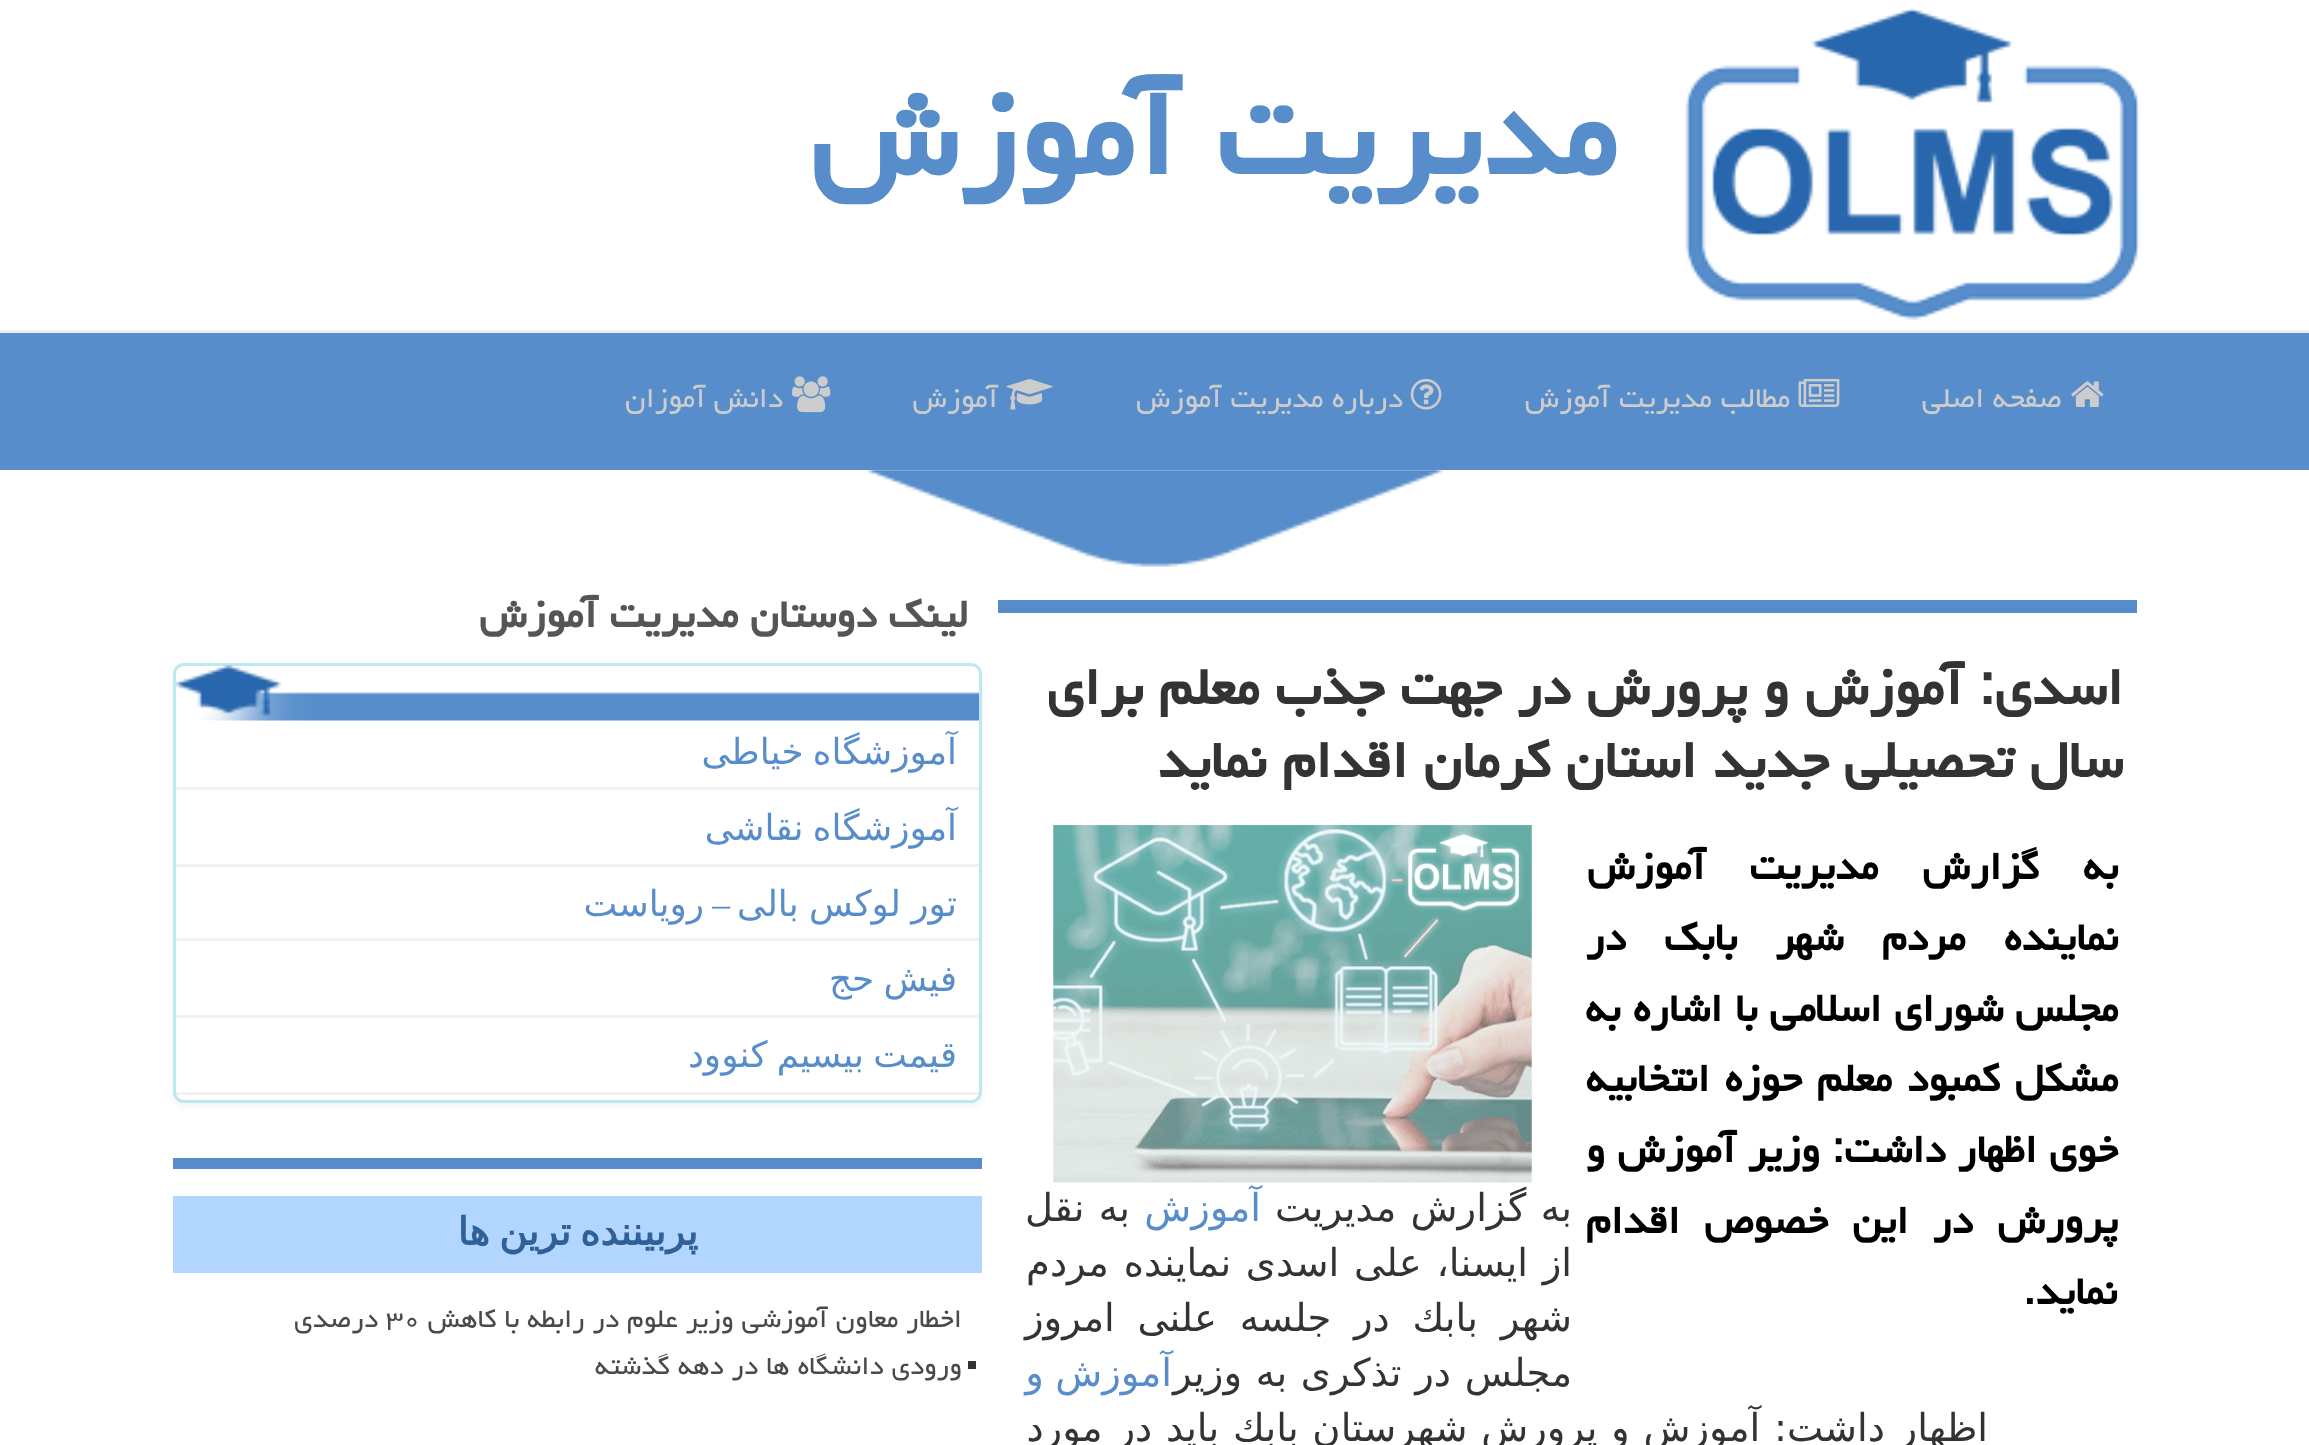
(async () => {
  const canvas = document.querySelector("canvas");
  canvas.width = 2309;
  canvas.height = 1445;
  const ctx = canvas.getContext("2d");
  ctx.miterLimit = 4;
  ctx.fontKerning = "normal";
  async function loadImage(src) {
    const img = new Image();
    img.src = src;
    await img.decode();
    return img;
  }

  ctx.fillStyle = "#ffffff";
  ctx.fillRect(0, 0, 2309, 1445);
  ctx.fillStyle = "#eeeeee";
  ctx.fillRect(0, 330, 2309, 3);
  ctx.drawImage(await loadImage("img/1.png"), 1685, 7, 456, 313);
  ctx.fillStyle = "#568dca";
  ctx.fillRect(0, 333, 2309, 137);
  ctx.drawImage(await loadImage("img/2.png"), 2071, 381, 33, 26);
  ctx.drawImage(await loadImage("img/3.png"), 1798, 378, 42, 29);
  ctx.drawImage(await loadImage("img/4.png"), 1410, 378, 32, 32);
  ctx.drawImage(await loadImage("img/5.png"), 1006, 378, 47, 32);
  ctx.drawImage(await loadImage("img/6.png"), 792, 376, 39, 37);
  ctx.drawImage(await loadImage("img/7.png"), 866, 470, 578, 97);
  ctx.fillStyle = "#568cc9";
  ctx.fillRect(998, 600, 1139, 13);
  ctx.drawImage(await loadImage("img/8.png"), 1053, 825, 479, 358);
  ctx.fillStyle = "rgba(0, 0, 0, 0.05)";
  ctx.filter = "blur(3px)";
  ctx.beginPath();
  ctx.roundRect(173, 666, 809, 440, 11);
  ctx.fill();
  ctx.filter = "none";
  ctx.fillStyle = "#ffffff";
  ctx.beginPath();
  ctx.roundRect(174.5, 664.5, 806, 437, 9.5);
  ctx.fill();
  ctx.strokeStyle = "#bce8f1";
  ctx.lineWidth = 3;
  ctx.stroke();
  ctx.drawImage(await loadImage("img/9.png"), 176, 665, 803, 56);
  for (const [x, y, w, h, color] of [
    [176, 787, 803, 3, "#f1f1f1"],
    [176, 864, 803, 3, "#f1f1f1"],
    [176, 938, 803, 3, "#f1f1f1"],
    [176, 1015, 803, 3, "#f1f1f1"],
    [176, 1092, 803, 3, "#f1f1f1"],
    [173, 1158, 809, 11, "#568cc9"],
    [173, 1196, 809, 77, "#b2d6ff"],
    [968, 1361, 8, 8, "#333333"],
  ]) {
    ctx.fillStyle = color;
    ctx.fillRect(x, y, w, h);
  }
  ctx.direction = "rtl";
  ctx.font = "bold 154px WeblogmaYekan";
  ctx.fillStyle = "#568dca";
  ctx.fillText("مدیریت آموزش", 1616, 174);
  ctx.font = "35.75px WeblogmaYekan";
  ctx.fillStyle = "#cccccc";
  for (const [text, x, y] of [
    ["صفحه اصلی", 2062, 407],
    ["مطالب مدیریت آموزش", 1790, 407],
    ["درباره مدیریت آموزش", 1403, 407],
    ["آموزش", 998, 407],
    ["دانش آموزان", 783, 407],
  ]) {
    ctx.fillText(text, x, y);
  }
  ctx.font = "bold 66px WeblogmaYekan";
  ctx.fillStyle = "#333333";
  ctx.fillText("اسدی: آموزش و پرورش در جهت جذب معلم برای", 2123, 704);
  ctx.fillText("سال تحصیلی جدید استان كرمان اقدام نماید", 2123, 777);
  ctx.wordSpacing = "32px";
  ctx.font = "bold 49.5px WeblogmaYekan";
  ctx.fillStyle = "#000000";
  ctx.fillText("به گزارش مدیریت آموزش", 2118, 879);
  ctx.wordSpacing = "26.5px";
  ctx.fillText("نماینده مردم شهر بابك در", 2118, 950);
  ctx.wordSpacing = "0.5px";
  ctx.fillText("مجلس شورای اسلامی با اشاره به", 2118, 1021);
  ctx.wordSpacing = "3px";
  ctx.fillText("مشكل كمبود معلم حوزه انتخابیه", 2118, 1091);
  ctx.wordSpacing = "0.25px";
  ctx.fillText("خوی اظهار داشت: وزیر آموزش و", 2118, 1162);
  ctx.wordSpacing = "12.5px";
  ctx.fillText("پرورش در این خصوص اقدام", 2118, 1233);
  ctx.wordSpacing = "0px";
  ctx.fillText("نماید.", 2117, 1304);
  ctx.wordSpacing = "2px";
  ctx.font = "38.5px DejaVu Sans";
  ctx.fillStyle = "#333333";
  ctx.fillText("به گزارش مدیریت", 1572, 1221);
  ctx.wordSpacing = "0px";
  ctx.fillStyle = "#568dca";
  ctx.fillText("آموزش", 1261, 1221);
  ctx.wordSpacing = "2px";
  ctx.fillStyle = "#333333";
  ctx.fillText("به نقل", 1130, 1221);
  ctx.wordSpacing = "2.5px";
  ctx.fillText("از ایسنا، علی اسدی نماینده مردم", 1572, 1276);
  ctx.wordSpacing = "10.5px";
  ctx.fillText("شهر بابك در جلسه علنی امروز", 1572, 1331);
  ctx.wordSpacing = "1.5px";
  ctx.fillText("مجلس در تذكری به وزیر", 1572, 1386);
  ctx.wordSpacing = "-1px";
  ctx.fillStyle = "#568dca";
  ctx.fillText("آموزش و", 1172, 1386);
  ctx.wordSpacing = "1.5px";
  ctx.fillStyle = "#333333";
  ctx.fillText("اظهار داشت: آموزش و پرورش شهرستان بابك باید در مورد", 1988, 1441);
  ctx.wordSpacing = "0px";
  ctx.font = "bold 49.5px WeblogmaYekan";
  ctx.fillStyle = "#555555";
  ctx.fillText("لینک دوستان مدیریت آموزش", 968, 627);
  ctx.wordSpacing = "-2px";
  ctx.font = "35.75px DejaVu Sans";
  ctx.fillStyle = "#568dca";
  ctx.fillText("آموزشگاه خیاطی", 957, 764);
  ctx.fillText("آموزشگاه نقاشی", 957, 840);
  ctx.wordSpacing = "-1px";
  ctx.fillText("تور لوکس بالی", 957, 916);
  ctx.wordSpacing = "0px";
  ctx.font = "35.75px Liberation Serif";
  ctx.fillText("–", 730, 916);
  ctx.font = "35.75px DejaVu Sans";
  ctx.fillText("رویاست", 704, 916);
  ctx.wordSpacing = "-2px";
  ctx.fillText("فیش حج", 957, 991);
  ctx.fillText("قیمت بیسیم کنوود", 957, 1067);
  ctx.wordSpacing = "-3px";
  ctx.font = "bold 38.5px DejaVu Sans";
  ctx.fillStyle = "#2f6097";
  ctx.fillText("پربیننده ترین ها", 698, 1245);
  ctx.wordSpacing = "0px";
  ctx.font = "33px WeblogmaYekan";
  ctx.fillStyle = "#4a4a4a";
  ctx.fillText("اخطار معاون آموزشی وزیر علوم در رابطه با کاهش", 962, 1327);
  ctx.direction = "ltr";
  ctx.fillText("۳۰", 386, 1327);
  ctx.direction = "rtl";
  ctx.fillText("درصدی", 378, 1327);
  ctx.fillText("ورودی دانشگاه ها در دهه گذشته", 962, 1374);
})();
